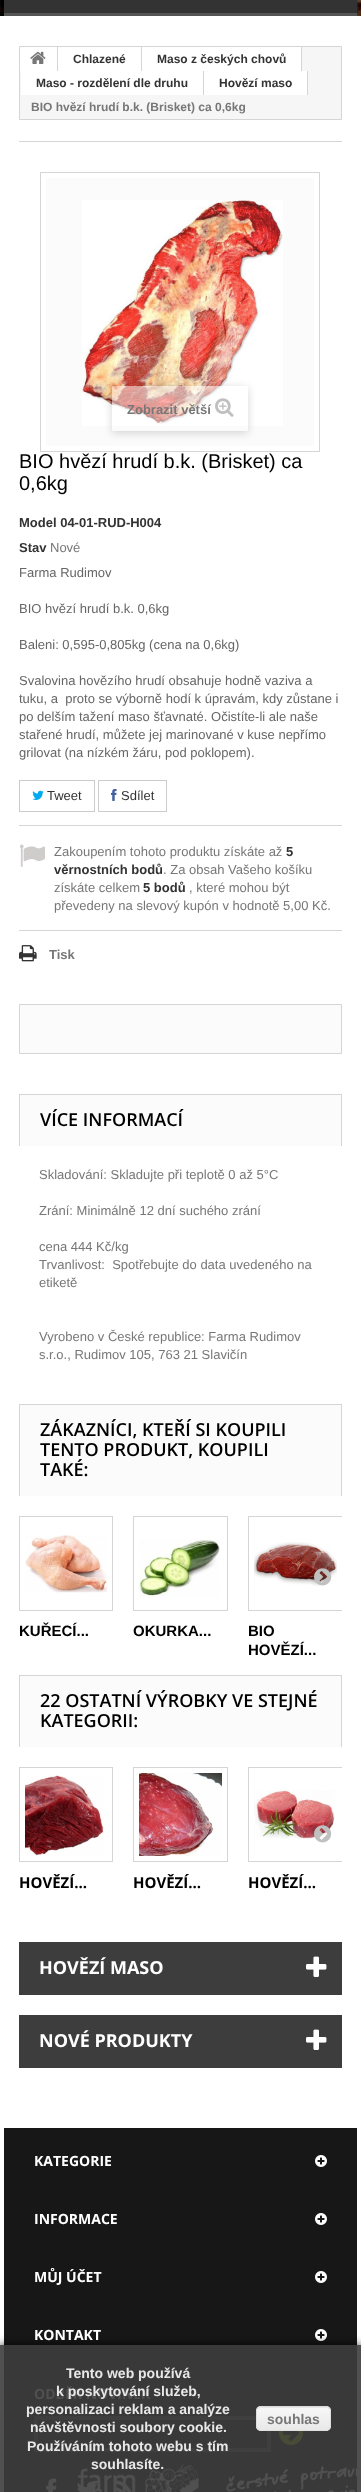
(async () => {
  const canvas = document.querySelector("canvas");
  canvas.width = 361;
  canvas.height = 2492;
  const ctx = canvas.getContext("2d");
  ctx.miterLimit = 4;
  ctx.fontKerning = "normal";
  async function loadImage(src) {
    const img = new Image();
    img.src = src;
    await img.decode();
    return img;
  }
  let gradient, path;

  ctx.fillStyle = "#ffffff";
  ctx.fillRect(0, 0, 361, 2492);
  ctx.fillStyle = "#505050";
  ctx.fillRect(0, 2345, 361, 147);
  ctx.drawImage(await loadImage("img/1.png"), 0, 0, 361, 16);
  ctx.fillStyle = "#333333";
  ctx.fillRect(4, 0, 353, 13);
  ctx.fillStyle = "#555555";
  ctx.fillRect(4, 13, 353, 3);
  ctx.fillStyle = "#f6f6f6";
  ctx.beginPath();
  ctx.rect(19.5, 46.5, 322, 73);
  ctx.fill();
  ctx.strokeStyle = "#d6d4d4";
  ctx.stroke();
  ctx.fillStyle = "#ffffff";
  ctx.fillRect(20, 47, 37, 24);
  ctx.fillStyle = "#d6d4d4";
  ctx.fillRect(57, 47, 1, 24);
  ctx.drawImage(await loadImage("img/2.png"), 30, 51, 16, 13);
  for (const [x, y, w, h, color] of [
    [58, 47, 83, 24, "#ffffff"],
    [141, 47, 1, 24, "#d6d4d4"],
    [142, 47, 159, 24, "#ffffff"],
    [301, 47, 1, 24, "#d6d4d4"],
    [21, 71, 182, 24, "#ffffff"],
    [203, 71, 1, 24, "#d6d4d4"],
    [204, 71, 103, 24, "#ffffff"],
    [307, 71, 1, 24, "#d6d4d4"],
    [19, 141, 323, 1, "#d6d4d4"],
  ]) {
    ctx.fillStyle = color;
    ctx.fillRect(x, y, w, h);
  }
  ctx.strokeRect(40.5, 172.5, 279, 279);
  ctx.fillStyle = "#fbfbfb";
  ctx.fillRect(46, 178, 268, 268);
  ctx.drawImage(await loadImage("img/3.png"), 82, 200, 201, 226);
  ctx.save();
  path = new Path2D("M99 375H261V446H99ZM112 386H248V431H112Z");
  ctx.clip(path, "evenodd");
  ctx.fillStyle = "rgba(0, 0, 0, 0.16)";
  ctx.filter = "blur(4px)";
  ctx.beginPath();
  ctx.rect(112, 388, 136, 45);
  ctx.fill();
  ctx.filter = "none";
  ctx.restore();
  ctx.fillStyle = "rgba(255, 255, 255, 0.5)";
  ctx.fillRect(112, 386, 111, 40);
  ctx.drawImage(await loadImage("img/4.png"), 215, 398, 19, 19);
  ctx.strokeStyle = "#cccccc";
  ctx.strokeRect(19.5, 780.5, 75, 31);
  ctx.drawImage(await loadImage("img/5.png"), 32, 790, 12, 10);
  ctx.strokeRect(98.5, 780.5, 68, 31);
  ctx.drawImage(await loadImage("img/6.png"), 111, 789, 6, 12);
  ctx.fillStyle = "#d6d4d4";
  ctx.fillRect(19, 825, 323, 1);
  ctx.fillRect(19, 930, 323, 1);
  ctx.drawImage(await loadImage("img/7.png"), 20, 844, 25, 23);
  ctx.drawImage(await loadImage("img/8.png"), 19, 945, 18, 17);
  ctx.fillStyle = "#fbfbfb";
  ctx.beginPath();
  ctx.rect(19.5, 1004.5, 322, 49);
  ctx.fill();
  ctx.strokeStyle = "#d6d4d4";
  ctx.stroke();
  for (const [x, y, w, h, color] of [
    [20, 1095, 321, 51, "#fbfbfb"],
    [19, 1094, 323, 1, "#d6d4d4"],
    [341, 1094, 1, 52, "#d6d4d4"],
    [19, 1094, 1, 52, "#d6d4d4"],
    [20, 1405, 321, 91, "#fbfbfb"],
    [19, 1404, 323, 1, "#d6d4d4"],
    [341, 1404, 1, 92, "#d6d4d4"],
    [19, 1404, 1, 92, "#d6d4d4"],
  ]) {
    ctx.fillStyle = color;
    ctx.fillRect(x, y, w, h);
  }
  ctx.save();
  ctx.beginPath();
  ctx.rect(19, 1516, 323, 149);
  ctx.clip();
  ctx.strokeRect(248.5, 1516.5, 94, 94);
  ctx.restore();
  ctx.drawImage(await loadImage("img/12.png"), 254, 1542, 83, 44);
  ctx.drawImage(await loadImage("img/9.png"), 314, 1568, 18, 18);
  ctx.strokeRect(19.5, 1516.5, 93, 94);
  ctx.drawImage(await loadImage("img/10.png"), 25, 1535, 82, 58);
  ctx.strokeRect(133.5, 1516.5, 94, 94);
  ctx.drawImage(await loadImage("img/11.png"), 139, 1539, 81, 58);
  for (const [x, y, w, h, color] of [
    [20, 1676, 321, 71, "#fbfbfb"],
    [19, 1675, 323, 1, "#d6d4d4"],
    [341, 1675, 1, 72, "#d6d4d4"],
    [19, 1675, 1, 72, "#d6d4d4"],
  ]) {
    ctx.fillStyle = color;
    ctx.fillRect(x, y, w, h);
  }
  ctx.save();
  ctx.beginPath();
  ctx.rect(19, 1767, 323, 165);
  ctx.clip();
  ctx.strokeRect(248.5, 1767.5, 94, 94);
  ctx.restore();
  ctx.drawImage(await loadImage("img/16.png"), 254, 1790, 81, 49);
  ctx.drawImage(await loadImage("img/13.png"), 314, 1825, 18, 18);
  ctx.strokeRect(19.5, 1767.5, 93, 94);
  ctx.drawImage(await loadImage("img/14.png"), 25, 1775, 80, 81);
  ctx.strokeRect(133.5, 1767.5, 94, 94);
  ctx.drawImage(await loadImage("img/15.png"), 139, 1773, 83, 83);
  ctx.fillStyle = "#3d3d3d";
  ctx.fillRect(19, 1942, 323, 53);
  ctx.drawImage(await loadImage("img/17.png"), 306, 1956, 21, 21);
  ctx.fillRect(19, 2015, 323, 53);
  ctx.drawImage(await loadImage("img/17.png"), 306, 2029, 21, 21);
  ctx.fillStyle = "#171717";
  ctx.fillRect(4, 2128, 353, 217);
  ctx.fillStyle = "#393939";
  ctx.fillRect(4, 2345, 353, 147);
  ctx.drawImage(await loadImage("img/18.png"), 315, 2155, 12, 12);
  ctx.drawImage(await loadImage("img/18.png"), 315, 2213, 12, 12);
  ctx.drawImage(await loadImage("img/18.png"), 315, 2271, 12, 12);
  ctx.drawImage(await loadImage("img/18.png"), 315, 2329, 12, 12);
  ctx.strokeStyle = "#3f3f3f";
  ctx.lineWidth = 4;
  ctx.strokeRect(36, 2418, 233, 32);
  ctx.drawImage(await loadImage("img/19.png"), 279, 2421, 24, 24);
  ctx.drawImage(await loadImage("img/22.png"), 77, 2481, 21, 11);
  ctx.drawImage(await loadImage("img/23.png"), 114, 2480, 18, 12);
  ctx.drawImage(await loadImage("img/20.png"), 78, 2463, 279, 29);
  ctx.drawImage(await loadImage("img/21.png"), 46, 2478, 11, 14);
  ctx.save();
  ctx.beginPath();
  ctx.rect(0, 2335, 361, 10);
  ctx.clip();
  ctx.fillStyle = "rgba(0, 0, 0, 0.9)";
  ctx.filter = "blur(5px)";
  ctx.beginPath();
  ctx.rect(0, 2345, 361, 147);
  ctx.fill();
  ctx.filter = "none";
  ctx.restore();
  ctx.fillStyle = "rgba(249, 249, 249, 0.9)";
  ctx.beginPath();
  ctx.roundRect(256, 2406, 75, 25, 5);
  ctx.fill();
  ctx.save();
  ctx.beginPath();
  ctx.roundRect(256, 2406, 75, 25, 5);
  ctx.clip();
  gradient = ctx.createLinearGradient(257, 2384, 257, 2407);
  gradient.addColorStop(0.05, "#e2e2e2");
  gradient.addColorStop(1, "#d4d4d4");
  ctx.fillStyle = gradient;
  ctx.fillRect(256, 2406, 75, 1);
  gradient = ctx.createLinearGradient(257, 2407, 257, 2430);
  gradient.addColorStop(0.05, "rgba(249, 249, 249, 0.9)");
  gradient.addColorStop(1, "rgba(233, 233, 233, 0.9)");
  ctx.fillStyle = gradient;
  ctx.fillRect(256, 2407, 75, 23);
  gradient = ctx.createLinearGradient(257, 2430, 257, 2453);
  gradient.addColorStop(0.05, "rgba(249, 249, 249, 0.9)");
  gradient.addColorStop(1, "rgba(233, 233, 233, 0.9)");
  ctx.fillStyle = gradient;
  ctx.fillRect(256, 2430, 75, 1);
  ctx.restore();
  ctx.fillStyle = "#e8e8e8";
  path = new Path2D("M261 2408H326C328 2408 330 2410 330 2412C330 2404 320 2407 315 2407H272C267 2407 257 2404 257 2412C257 2410 259 2408 261 2408Z");
  ctx.fill(path);
  ctx.beginPath();
  ctx.roundRect(256.5, 2406.5, 74, 24, 4.5);
  ctx.strokeStyle = "rgba(220, 220, 220, 0.9)";
  ctx.lineWidth = 1;
  ctx.stroke();
  ctx.font = "bold 12px Liberation Sans";
  ctx.fillStyle = "#333333";
  for (const [text, x, y] of [
    ["Chlazené", 73, 63],
    ["Maso z českých chovů", 157, 63],
    ["Maso - rozdělení dle druhu", 36, 87],
    ["Hovězí maso", 219, 87],
  ]) {
    ctx.fillText(text, x, y);
  }
  ctx.fillStyle = "#777777";
  ctx.fillText("BIO hvězí hrudí b.k. (Brisket) ca 0,6kg", 31, 111);
  ctx.font = "bold 13px Liberation Sans";
  ctx.fillText("Zobrazit větší", 127, 414);
  ctx.font = "20px Liberation Sans";
  ctx.fillStyle = "#000000";
  ctx.fillText("BIO hvězí hrudí b.k. (Brisket) ca", 19, 468);
  ctx.fillText("0,6kg", 19, 490);
  ctx.font = "bold 13px Liberation Sans";
  ctx.fillStyle = "#333333";
  ctx.fillText("Model 04-01-RUD-H004", 19, 527);
  ctx.fillText("Stav", 19, 552);
  ctx.font = "13px Liberation Sans";
  ctx.fillStyle = "#777777";
  ctx.fillText("Nové", 50, 552);
  ctx.fillStyle = "#666666";
  for (const [text, x, y] of [
    ["Farma Rudimov", 19, 577],
    ["BIO hvězí hrudí b.k. 0,6kg", 19, 613],
    ["Baleni: 0,595-0,805kg (cena na 0,6kg)", 19, 649],
    ["Svalovina hovězího hrudí obsahuje hodně vaziva a", 19, 685],
    ["tuku, a  proto se výborně hodí k úpravám, kdy zůstane i", 19, 703],
    ["po delším tažení maso šťavnaté. Očistíte-li ale naše", 19, 721],
    ["stařené hrudí, můžete jej marinované v kuse nepřímo", 19, 739],
    ["grilovat (na nízkém žáru, pod poklopem).", 19, 757],
  ]) {
    ctx.fillText(text, x, y);
  }
  ctx.fillStyle = "#333333";
  ctx.fillText("Tweet", 47, 800);
  ctx.fillText("Sdílet", 121, 800);
  ctx.fillStyle = "#777777";
  ctx.fillText("Zakoupením tohoto produktu získáte až", 54, 856);
  ctx.font = "bold 13px Liberation Sans";
  ctx.fillStyle = "#333333";
  ctx.fillText("5", 286, 856);
  ctx.fillText("věrnostních bodů", 54, 874);
  ctx.font = "13px Liberation Sans";
  ctx.fillStyle = "#777777";
  ctx.fillText(". Za obsah Vašeho košíku", 163, 874);
  ctx.fillText("získáte celkem", 54, 892);
  ctx.font = "bold 13px Liberation Sans";
  ctx.fillStyle = "#333333";
  ctx.fillText("5 bodů", 143, 892);
  ctx.font = "13px Liberation Sans";
  ctx.fillStyle = "#777777";
  ctx.fillText(", které mohou být", 189, 892);
  ctx.fillText("převedeny na slevový kupón v hodnotě 5,00 Kč.", 54, 910);
  ctx.font = "bold 13px Liberation Sans";
  ctx.fillText("Tisk", 49, 959);
  ctx.font = "600 18px Open Sans";
  ctx.fillStyle = "#000000";
  ctx.fillText("VÍCE INFORMACÍ", 40, 1126);
  ctx.font = "13px Liberation Sans";
  ctx.fillStyle = "#777777";
  for (const [text, x, y] of [
    ["Skladování: Skladujte při teplotě 0 až 5°C", 39, 1179],
    ["Zrání: Minimálně 12 dní suchého zrání", 39, 1215],
    ["cena 444 Kč/kg", 39, 1251],
    ["Trvanlivost:  Spotřebujte do data uvedeného na", 39, 1269],
    ["etiketě", 39, 1287],
    ["Vyrobeno v České republice: Farma Rudimov", 39, 1341],
    ["s.r.o., Rudimov 105, 763 21 Slavičín", 39, 1359],
  ]) {
    ctx.fillText(text, x, y);
  }
  ctx.font = "600 18px Open Sans";
  ctx.fillStyle = "#000000";
  for (const [text, x, y] of [
    ["ZÁKAZNÍCI, KTEŘÍ SI KOUPILI", 40, 1436],
    ["TENTO PRODUKT, KOUPILI", 40, 1456],
    ["TAKÉ:", 40, 1476],
  ]) {
    ctx.fillText(text, x, y);
  }
  ctx.font = "bold 15px Liberation Sans";
  for (const [text, x, y] of [
    ["KUŘECÍ...", 19, 1636],
    ["OKURKA...", 133, 1636],
    ["BIO", 248, 1636],
    ["HOVĚZÍ...", 248, 1655],
  ]) {
    ctx.fillText(text, x, y);
  }
  ctx.font = "600 18px Open Sans";
  ctx.fillText("22 OSTATNÍ VÝROBKY VE STEJNÉ", 40, 1707);
  ctx.fillText("KATEGORII:", 40, 1727);
  ctx.font = "bold 15px Open Sans";
  for (const [text, x, y] of [
    ["HOVĚZÍ...", 19, 1888],
    ["HOVĚZÍ...", 133, 1888],
    ["HOVĚZÍ...", 248, 1888],
  ]) {
    ctx.fillText(text, x, y);
  }
  ctx.font = "bold 18px Open Sans";
  ctx.fillStyle = "#ffffff";
  ctx.fillText("HOVĚZÍ MASO", 39, 1974);
  ctx.fillText("NOVÉ PRODUKTY", 39, 2047);
  ctx.font = "bold 14px Open Sans";
  for (const [text, x, y] of [
    ["KATEGORIE", 34, 2166],
    ["INFORMACE", 34, 2224],
    ["MŮJ ÚČET", 34, 2282],
    ["KONTAKT", 34, 2340],
  ]) {
    ctx.fillText(text, x, y);
  }
  ctx.font = "bold 14px Liberation Sans";
  ctx.fillStyle = "#e8e8e8";
  for (const [text, x, y] of [
    ["Tento web používá", 66, 2378],
    ["personalizaci reklam a analýze", 26, 2414],
    ["návštěvnosti soubory cookie.", 30, 2432],
    ["Používáním tohoto webu s tím", 27, 2451],
    ["souhlasíte.", 91, 2469],
  ]) {
    ctx.fillText(text, x, y);
  }
  ctx.fillStyle = "#777777";
  ctx.fillText("souhlas", 267, 2424);
  ctx.font = "bold 14px Open Sans";
  ctx.fillStyle = "#505050";
  ctx.fillText("ODBĚR NOVINEK", 34, 2399);
  ctx.font = "bold 14px Liberation Sans";
  ctx.fillStyle = "#e8e8e8";
  ctx.fillText("k poskytování služeb,", 56, 2396);
})();
